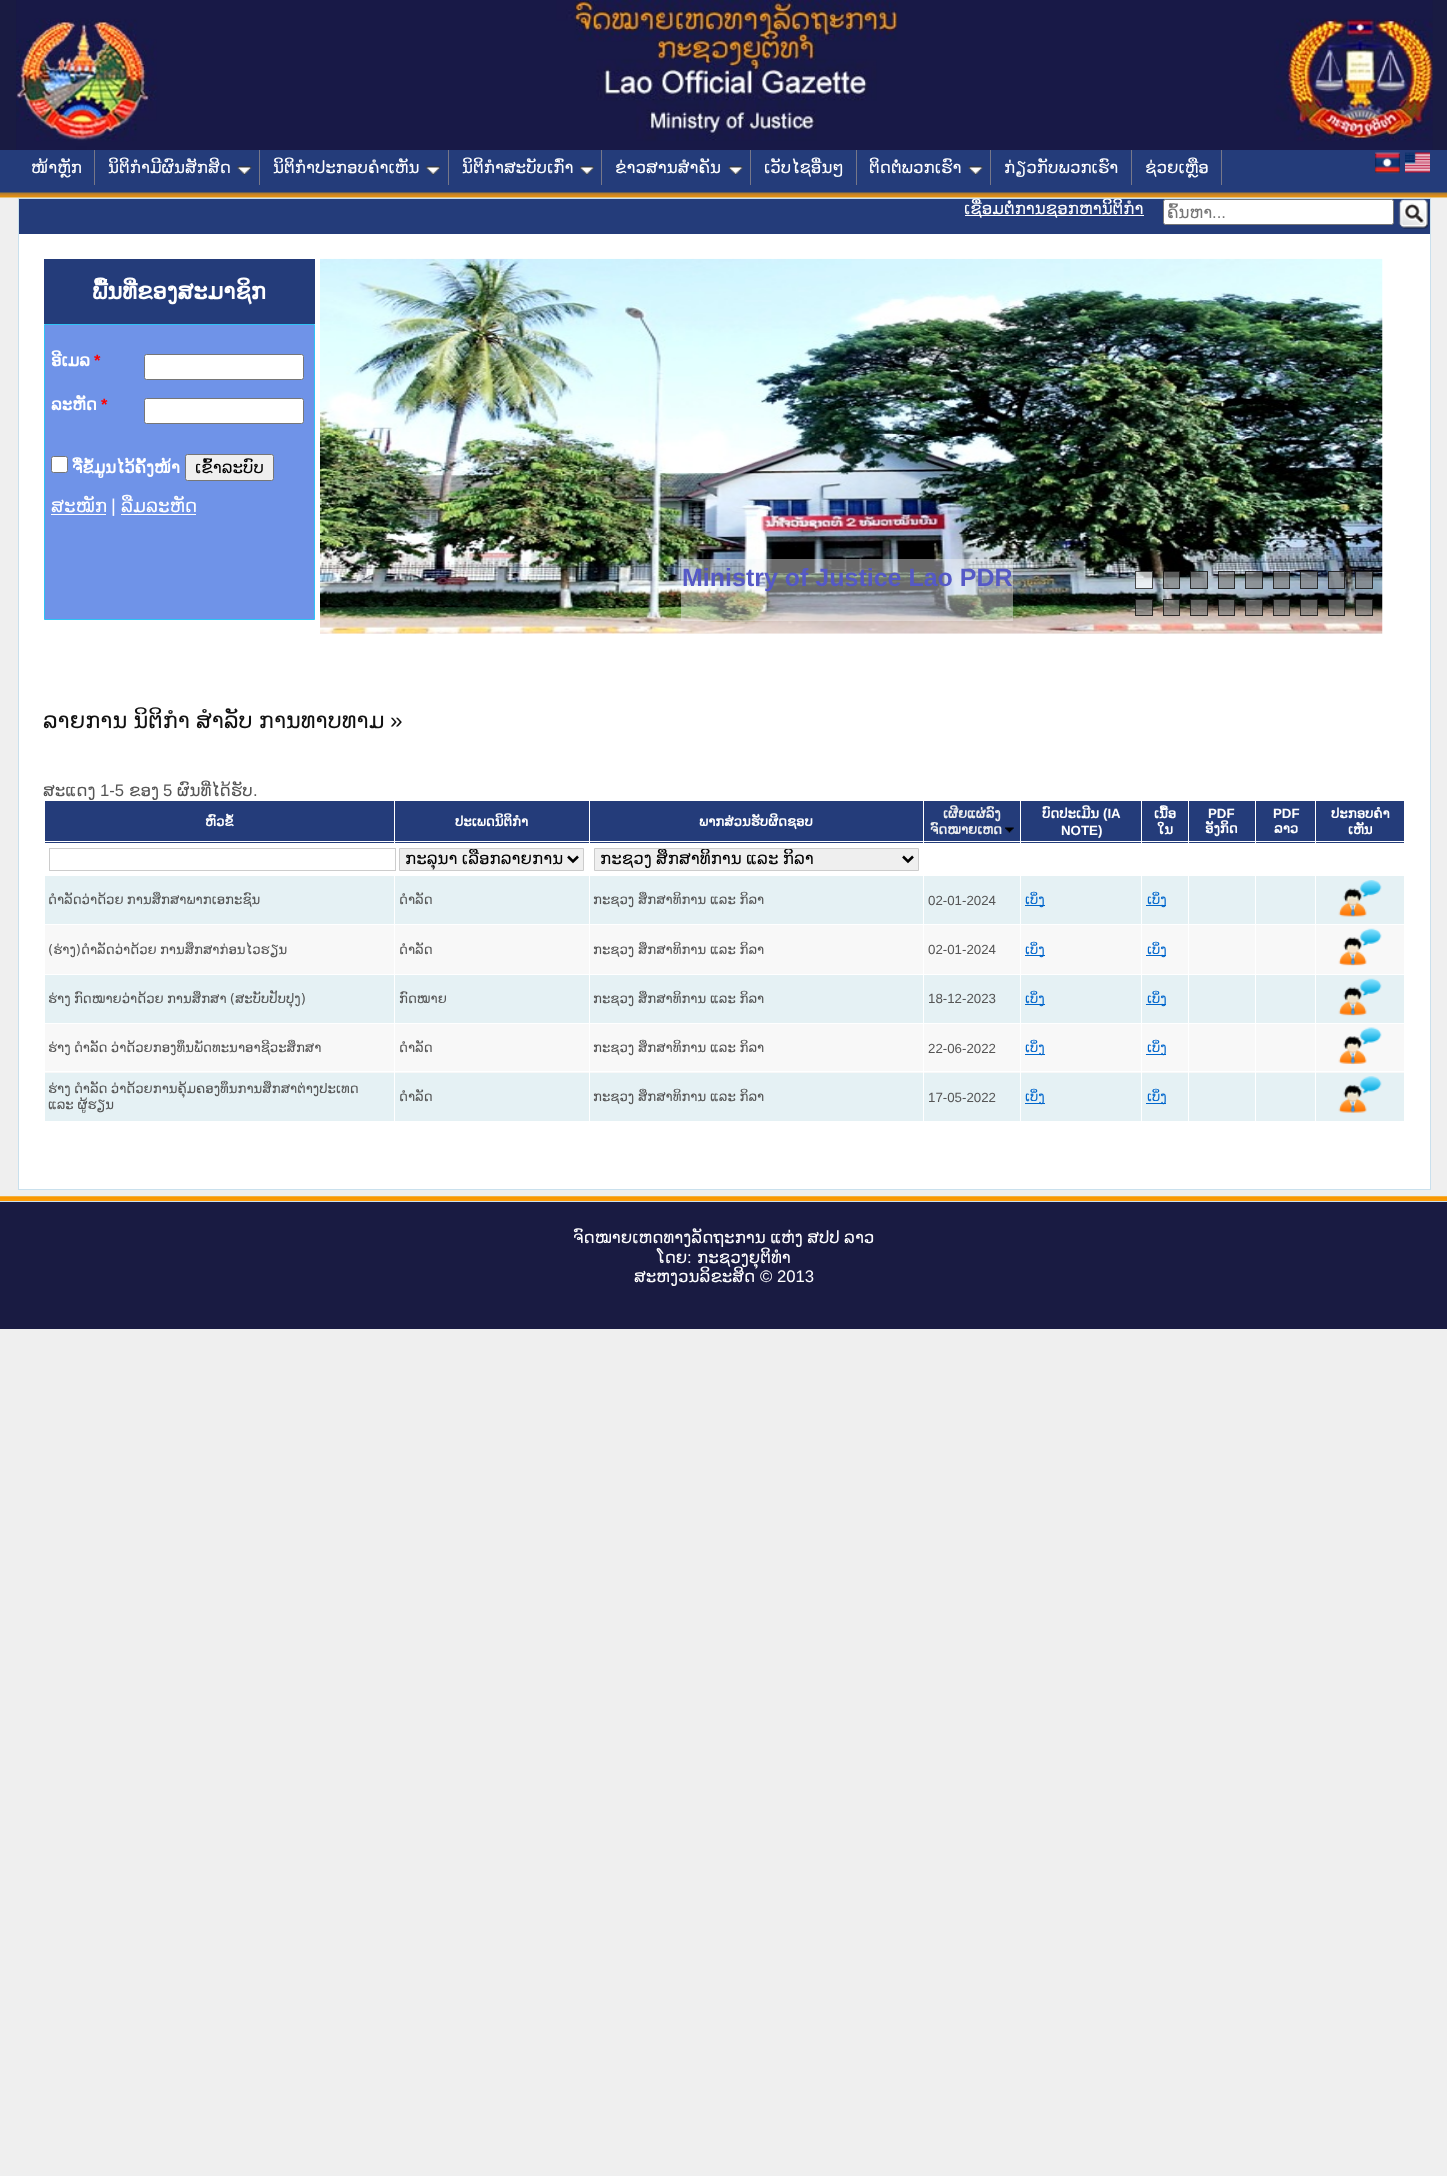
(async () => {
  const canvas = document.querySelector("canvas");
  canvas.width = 1447;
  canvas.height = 2176;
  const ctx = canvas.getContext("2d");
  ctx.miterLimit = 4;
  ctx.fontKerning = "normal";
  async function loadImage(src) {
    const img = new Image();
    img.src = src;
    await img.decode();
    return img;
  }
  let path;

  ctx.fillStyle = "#efefef";
  ctx.fillRect(0, 0, 1447, 2176);
  ctx.fillStyle = "#191b42";
  ctx.fillRect(0, 0, 1447, 150);
  ctx.drawImage(await loadImage("img/1.png"), 16, 0, 1417, 150);
  for (const [x, y, w, h, color] of [
    [0, 150, 1447, 43, "#243c7a"],
    [94, 150, 1, 35, "#777788"],
    [259, 150, 1, 35, "#777788"],
  ]) {
    ctx.fillStyle = color;
    ctx.fillRect(x, y, w, h);
  }
  ctx.drawImage(await loadImage("img/2.png"), 237, 166, 15, 9);
  ctx.fillRect(448, 150, 1, 35);
  ctx.drawImage(await loadImage("img/3.png"), 426, 166, 14, 9);
  ctx.fillRect(601, 150, 1, 35);
  ctx.drawImage(await loadImage("img/4.png"), 580, 166, 14, 9);
  ctx.fillRect(750, 150, 1, 35);
  ctx.drawImage(await loadImage("img/5.png"), 728, 166, 15, 9);
  ctx.fillRect(856, 150, 1, 35);
  ctx.fillRect(990, 150, 1, 35);
  ctx.drawImage(await loadImage("img/5.png"), 968, 166, 15, 9);
  ctx.fillRect(1131, 150, 1, 35);
  ctx.fillRect(1221, 150, 1, 35);
  ctx.drawImage(await loadImage("img/6.png"), 1375, 152, 25, 22);
  ctx.drawImage(await loadImage("img/7.png"), 1405, 152, 25, 21);
  ctx.drawImage(await loadImage("img/8.png"), 0, 192, 1447, 6);
  ctx.fillStyle = "#ffffff";
  ctx.fillRect(19, 234, 1411, 955);
  ctx.strokeStyle = "#c9e0ed";
  ctx.strokeRect(18.5, 198.5, 1412, 991);
  ctx.fillStyle = "#243c7a";
  ctx.fillRect(19, 199, 1411, 35);
  ctx.fillStyle = "#ffffff";
  ctx.fillRect(965, 215, 179, 1);
  ctx.beginPath();
  ctx.roundRect(1163.5, 199.5, 230, 25, 2);
  ctx.fill();
  ctx.strokeStyle = "#767676";
  ctx.stroke();
  ctx.drawImage(await loadImage("img/9.png"), 1398, 198, 31, 31);
  ctx.fillStyle = "#243c7a";
  ctx.fillRect(44, 259, 271, 65);
  ctx.fillStyle = "#6f93e8";
  ctx.beginPath();
  ctx.rect(44.5, 324.5, 270, 295);
  ctx.fill();
  ctx.strokeStyle = "#2dc3f5";
  ctx.stroke();
  ctx.fillStyle = "#ffffff";
  ctx.beginPath();
  ctx.roundRect(144.5, 354.5, 159, 25, 2);
  ctx.fill();
  ctx.strokeStyle = "#767676";
  ctx.stroke();
  ctx.beginPath();
  ctx.roundRect(144.5, 398.5, 159, 25, 2);
  ctx.fill();
  ctx.stroke();
  ctx.beginPath();
  ctx.roundRect(51.5, 456.5, 16, 16, 2);
  ctx.fill();
  ctx.stroke();
  ctx.fillStyle = "#efefef";
  ctx.beginPath();
  ctx.roundRect(185.5, 454.5, 88, 26, 2);
  ctx.fill();
  ctx.stroke();
  ctx.fillStyle = "#ffffff";
  ctx.fillRect(51, 514, 55, 1);
  ctx.fillRect(121, 514, 75, 1);
  ctx.drawImage(await loadImage("img/10.png"), 320, 258, 1063, 376);
  ctx.fillStyle = "rgba(245, 245, 245, 0.43)";
  ctx.fillRect(681, 559, 332, 62);
  ctx.fillStyle = "rgba(255, 255, 255, 0.7)";
  ctx.fillRect(1135, 571, 18, 18);
  ctx.strokeStyle = "rgba(0, 0, 0, 0.7)";
  ctx.strokeRect(1135.5, 571.5, 17, 17);
  ctx.fillStyle = "rgba(128, 128, 128, 0.7)";
  ctx.fillRect(1163, 571, 17, 18);
  ctx.strokeRect(1163.5, 571.5, 16, 17);
  ctx.fillRect(1190, 571, 18, 18);
  ctx.strokeRect(1190.5, 571.5, 17, 17);
  ctx.fillRect(1218, 571, 17, 18);
  ctx.strokeRect(1218.5, 571.5, 16, 17);
  ctx.fillRect(1245, 571, 18, 18);
  ctx.strokeRect(1245.5, 571.5, 17, 17);
  ctx.fillRect(1273, 571, 17, 18);
  ctx.strokeRect(1273.5, 571.5, 16, 17);
  ctx.fillRect(1300, 571, 18, 18);
  ctx.strokeRect(1300.5, 571.5, 17, 17);
  ctx.fillRect(1328, 571, 17, 18);
  ctx.strokeRect(1328.5, 571.5, 16, 17);
  ctx.fillRect(1355, 571, 18, 18);
  ctx.strokeRect(1355.5, 571.5, 17, 17);
  ctx.fillRect(1135, 599, 18, 17);
  ctx.strokeRect(1135.5, 599.5, 17, 16);
  ctx.fillRect(1163, 599, 17, 17);
  ctx.strokeRect(1163.5, 599.5, 16, 16);
  ctx.fillRect(1190, 599, 18, 17);
  ctx.strokeRect(1190.5, 599.5, 17, 16);
  ctx.fillRect(1218, 599, 17, 17);
  ctx.strokeRect(1218.5, 599.5, 16, 16);
  ctx.fillRect(1245, 599, 18, 17);
  ctx.strokeRect(1245.5, 599.5, 17, 16);
  ctx.fillRect(1273, 599, 17, 17);
  ctx.strokeRect(1273.5, 599.5, 16, 16);
  ctx.fillRect(1300, 599, 18, 17);
  ctx.strokeRect(1300.5, 599.5, 17, 16);
  ctx.fillRect(1328, 599, 17, 17);
  ctx.strokeRect(1328.5, 599.5, 16, 16);
  ctx.fillRect(1355, 599, 18, 17);
  ctx.strokeRect(1355.5, 599.5, 17, 16);
  for (const [x, y, w, h, color] of [
    [45, 801, 349, 42, "#243c7a"],
    [395, 801, 194, 42, "#243c7a"],
    [590, 801, 333, 42, "#243c7a"],
    [924, 801, 96, 42, "#243c7a"],
  ]) {
    ctx.fillStyle = color;
    ctx.fillRect(x, y, w, h);
  }
  ctx.drawImage(await loadImage("img/11.png"), 1005, 827, 9, 6);
  for (const [x, y, w, h, color] of [
    [1021, 801, 167, 42, "#243c7a"],
    [1189, 801, 66, 42, "#243c7a"],
    [1256, 801, 59, 42, "#243c7a"],
    [1316, 801, 88, 42, "#243c7a"],
    [1141, 841, 264, 1, "#ffffff"],
    [1141, 841, 1, 2, "#ffffff"],
    [44, 841, 1099, 1, "#ffffff"],
    [1141, 800, 1, 43, "#ffffff"],
  ]) {
    ctx.fillStyle = color;
    ctx.fillRect(x, y, w, h);
  }
  ctx.strokeStyle = "#cccccc";
  ctx.strokeRect(49.5, 848.5, 346, 22);
  ctx.fillStyle = "#efefef";
  ctx.beginPath();
  ctx.rect(399.5, 848.5, 184, 22);
  ctx.fill();
  ctx.stroke();
  path = new Path2D("M568 856.5L573 861.5L578 856.5");
  ctx.strokeStyle = "#000000";
  ctx.lineWidth = 2.5;
  ctx.stroke(path);
  ctx.beginPath();
  ctx.rect(594.5, 848.5, 324, 22);
  ctx.fill();
  ctx.strokeStyle = "#cccccc";
  ctx.lineWidth = 1;
  ctx.stroke();
  path = new Path2D("M903 856.5L908 861.5L913 856.5");
  ctx.strokeStyle = "#000000";
  ctx.lineWidth = 2.5;
  ctx.stroke(path);
  for (const [x, y, w, h, color] of [
    [45, 876, 1359, 48, "#e5f1f4"],
    [1025, 905, 20, 1, "#0066cc"],
    [1146, 905, 20, 1, "#0066cc"],
  ]) {
    ctx.fillStyle = color;
    ctx.fillRect(x, y, w, h);
  }
  ctx.drawImage(await loadImage("img/12.png"), 1338, 880, 44, 37);
  for (const [x, y, w, h, color] of [
    [45, 925, 1359, 49, "#f8f8f8"],
    [1025, 955, 20, 1, "#0066cc"],
    [1146, 955, 20, 1, "#0066cc"],
  ]) {
    ctx.fillStyle = color;
    ctx.fillRect(x, y, w, h);
  }
  ctx.drawImage(await loadImage("img/13.png"), 1338, 928, 44, 38);
  for (const [x, y, w, h, color] of [
    [45, 975, 1359, 48, "#e5f1f4"],
    [1025, 1004, 20, 1, "#0066cc"],
    [1146, 1004, 20, 1, "#0066cc"],
  ]) {
    ctx.fillStyle = color;
    ctx.fillRect(x, y, w, h);
  }
  ctx.drawImage(await loadImage("img/14.png"), 1338, 978, 44, 38);
  for (const [x, y, w, h, color] of [
    [45, 1024, 1359, 49, "#f8f8f8"],
    [1315, 1071, 90, 1, "#ffffff"],
    [45, 1073, 1359, 48, "#e5f1f4"],
    [1315, 1071, 1, 52, "#ffffff"],
    [1255, 1071, 61, 1, "#ffffff"],
    [1255, 1071, 1, 52, "#ffffff"],
    [1188, 1071, 68, 1, "#ffffff"],
    [1188, 1071, 1, 52, "#ffffff"],
    [1141, 1071, 48, 1, "#ffffff"],
    [1141, 1071, 1, 52, "#ffffff"],
    [1020, 1071, 123, 1, "#ffffff"],
    [1020, 1071, 1, 52, "#ffffff"],
    [923, 1071, 98, 1, "#ffffff"],
    [923, 1071, 1, 52, "#ffffff"],
    [589, 1071, 335, 1, "#ffffff"],
    [589, 1071, 1, 52, "#ffffff"],
    [394, 1071, 196, 1, "#ffffff"],
    [394, 1071, 1, 52, "#ffffff"],
    [44, 1071, 351, 1, "#ffffff"],
    [394, 875, 1, 198, "#ffffff"],
    [589, 875, 1, 198, "#ffffff"],
    [923, 875, 1, 198, "#ffffff"],
    [1020, 875, 1, 198, "#ffffff"],
    [1025, 1054, 20, 1, "#0066cc"],
    [1141, 875, 1, 198, "#ffffff"],
    [1146, 1054, 20, 1, "#0066cc"],
    [1188, 875, 1, 198, "#ffffff"],
    [1255, 875, 1, 198, "#ffffff"],
    [1315, 875, 1, 198, "#ffffff"],
  ]) {
    ctx.fillStyle = color;
    ctx.fillRect(x, y, w, h);
  }
  ctx.drawImage(await loadImage("img/15.png"), 1338, 1027, 44, 38);
  ctx.fillStyle = "#0066cc";
  ctx.fillRect(1025, 1103, 20, 1);
  ctx.fillRect(1146, 1103, 20, 1);
  ctx.drawImage(await loadImage("img/16.png"), 1338, 1076, 44, 37);
  ctx.drawImage(await loadImage("img/17.png"), 0, 1196, 1447, 5);
  ctx.fillStyle = "#191b42";
  ctx.fillRect(0, 1202, 1447, 127);
  ctx.fillStyle = "#c9e0ed";
  ctx.fillRect(0, 1201, 1447, 1);
  ctx.font = "16.7px DejaVu Sans";
  ctx.fillStyle = "#ffffff";
  for (const [text, x, y] of [
    ["ໜ້າຫຼັກ", 31, 173],
    ["ນິຕິກໍາມີຜົນສັກສິດ", 108, 173],
    ["ນິຕິກໍາປະກອບຄໍາເຫັນ", 273, 173],
    ["ນິຕິກໍາສະບັບເກົ່າ", 462, 173],
    ["ຂ່າວສານສໍາຄັນ", 615, 173],
    ["ເວັບໄຊອື່ນໆ", 764, 173],
    ["ຕິດຕໍ່ພວກເຮົາ", 869, 173],
    ["ກ່ຽວກັບພວກເຮົາ", 1004, 173],
    ["ຊ່ວຍເຫຼືອ", 1145, 173],
    ["ເຊື່ອມຕໍ່ການຊອກຫານິຕິກຳ", 964, 214],
  ]) {
    ctx.fillText(text, x, y);
  }
  ctx.save();
  ctx.beginPath();
  ctx.rect(1168, 203, 205, 18);
  ctx.clip();
  ctx.fillStyle = "#757575";
  ctx.fillText("ຄົ້ນຫາ", 1167, 218);
  ctx.restore();
  ctx.font = "16.7px Liberation Sans";
  ctx.fillStyle = "#757575";
  ctx.fillText("...", 1212, 218);
  ctx.font = "bold 22.5px DejaVu Sans";
  ctx.fillStyle = "#ffffff";
  ctx.fillText("ພື້ນທີ່ຂອງສະມາຊິກ", 92, 299);
  ctx.font = "bold 16.5px DejaVu Sans";
  ctx.fillText("ອີເມລ", 51, 366);
  ctx.font = "bold 16.5px Liberation Sans";
  ctx.fillStyle = "#ff0000";
  ctx.fillText("*", 94, 366);
  ctx.font = "bold 16.5px DejaVu Sans";
  ctx.fillStyle = "#ffffff";
  ctx.fillText("ລະຫັດ", 51, 410);
  ctx.font = "bold 16.5px Liberation Sans";
  ctx.fillStyle = "#ff0000";
  ctx.fillText("*", 101, 410);
  ctx.font = "bold 16.5px DejaVu Sans";
  ctx.fillStyle = "#ffffff";
  ctx.fillText("ຈື່ຂໍ້ມູນໄວ້ຄັ້ງໜ້າ", 72, 473);
  ctx.font = "16.7px DejaVu Sans";
  ctx.fillStyle = "#000000";
  ctx.fillText("ເຂົ້າລະບົບ", 195, 473);
  ctx.font = "18.5px DejaVu Sans";
  ctx.fillStyle = "#ffffff";
  ctx.fillText("ສະໝັກ", 51, 512);
  ctx.font = "18.5px Liberation Sans";
  ctx.fillText("|", 111, 512);
  ctx.font = "18.5px DejaVu Sans";
  ctx.fillText("ລືມລະຫັດ", 121, 512);
  ctx.font = "bold 25px Liberation Sans";
  ctx.fillStyle = "#5559c6";
  ctx.fillText("Ministry of Justice Lao PDR", 682, 586);
  ctx.wordSpacing = "-1px";
  ctx.font = "22.5px DejaVu Sans";
  ctx.fillStyle = "#111111";
  ctx.fillText("ລາຍການ ນິຕິກໍາ ສໍາລັບ ການທາບທາມ", 43, 728);
  ctx.wordSpacing = "0px";
  ctx.font = "22.5px Liberation Sans";
  ctx.fillText("»", 390, 728);
  ctx.font = "16.7px DejaVu Sans";
  ctx.fillStyle = "#555555";
  ctx.fillText("ສະແດງ", 43, 796);
  ctx.font = "16.7px Liberation Sans";
  ctx.fillText("1-5", 100, 796);
  ctx.font = "16.7px DejaVu Sans";
  ctx.fillText("ຂອງ", 129, 796);
  ctx.font = "16.7px Liberation Sans";
  ctx.fillText("5", 163, 796);
  ctx.font = "16.7px DejaVu Sans";
  ctx.fillText("ຜົນທີ່ໄດ້ຮັບ", 177, 796);
  ctx.font = "16.7px Liberation Sans";
  ctx.fillText(".", 253, 796);
  ctx.font = "bold 13.3px DejaVu Sans";
  ctx.fillStyle = "#ffffff";
  for (const [text, x, y] of [
    ["ຫົວຂໍ້", 205, 826],
    ["ປະເພດນິຕິກຳ", 455, 826],
    ["ພາກສ່ວນຮັບຜິດຊອບ", 699, 826],
  ]) {
    ctx.fillText(text, x, y);
  }
  ctx.fillStyle = "#eeeeee";
  ctx.fillText("ເຜີຍແຜ່ລົງ", 943, 818);
  ctx.fillText("ຈົດໝາຍເຫດ", 930, 834);
  ctx.fillStyle = "#ffffff";
  ctx.fillText("ບົດປະເມີນ", 1042, 818);
  ctx.font = "bold 13.3px Liberation Sans";
  ctx.fillText("(IA", 1103, 818);
  ctx.fillText("NOTE)", 1061, 835);
  ctx.font = "bold 13.3px DejaVu Sans";
  ctx.fillText("ເນື້ອ", 1154, 818);
  ctx.fillText("ໃນ", 1157, 834);
  ctx.font = "bold 13.3px Liberation Sans";
  ctx.fillText("PDF", 1208, 818);
  ctx.font = "bold 13.3px DejaVu Sans";
  ctx.fillText("ອັງກິດ", 1205, 833);
  ctx.font = "bold 13.3px Liberation Sans";
  ctx.fillText("PDF", 1273, 818);
  ctx.font = "bold 13.3px DejaVu Sans";
  for (const [text, x, y] of [
    ["ລາວ", 1274, 833],
    ["ປະກອບຄໍາ", 1331, 818],
    ["ເຫັນ", 1348, 834],
  ]) {
    ctx.fillText(text, x, y);
  }
  ctx.save();
  ctx.beginPath();
  ctx.rect(405, 849, 158, 21);
  ctx.clip();
  ctx.wordSpacing = "-1px";
  ctx.font = "16.7px DejaVu Sans";
  ctx.fillStyle = "#000000";
  ctx.fillText("ກະລຸນາ ເລືອກລາຍການ", 405, 864);
  ctx.restore();
  ctx.save();
  ctx.beginPath();
  ctx.rect(600, 849, 298, 21);
  ctx.clip();
  ctx.wordSpacing = "-1px";
  ctx.font = "16.7px DejaVu Sans";
  ctx.fillStyle = "#000000";
  ctx.fillText("ກະຊວງ ສຶກສາທິການ ແລະ ກິລາ", 600, 864);
  ctx.restore();
  ctx.wordSpacing = "-1px";
  ctx.font = "13.3px DejaVu Sans";
  ctx.fillStyle = "#555555";
  ctx.fillText("ດຳລັດວ່າດ້ວຍ ການສຶກສາພາກເອກະຊົນ", 48, 904);
  ctx.wordSpacing = "0px";
  ctx.fillText("ດໍາລັດ", 399, 904);
  ctx.wordSpacing = "-0.5px";
  ctx.fillText("ກະຊວງ ສຶກສາທິການ ແລະ ກິລາ", 593, 904);
  ctx.wordSpacing = "0px";
  ctx.font = "13.3px Liberation Sans";
  ctx.fillText("02-01-2024", 928, 905);
  ctx.font = "13.3px DejaVu Sans";
  ctx.fillStyle = "#0066cc";
  ctx.fillText("ເບິ່ງ", 1025, 904);
  ctx.fillText("ເບິ່ງ", 1147, 904);
  ctx.wordSpacing = "-1px";
  ctx.fillStyle = "#555555";
  ctx.fillText("(ຮ່າງ)ດຳລັດວ່າດ້ວຍ ການສຶກສາກ່ອນໄວຮຽນ", 48, 954);
  ctx.wordSpacing = "0px";
  ctx.fillText("ດໍາລັດ", 399, 954);
  ctx.wordSpacing = "-0.5px";
  ctx.fillText("ກະຊວງ ສຶກສາທິການ ແລະ ກິລາ", 593, 954);
  ctx.wordSpacing = "0px";
  ctx.font = "13.3px Liberation Sans";
  ctx.fillText("02-01-2024", 928, 954);
  ctx.font = "13.3px DejaVu Sans";
  ctx.fillStyle = "#0066cc";
  ctx.fillText("ເບິ່ງ", 1025, 954);
  ctx.fillText("ເບິ່ງ", 1147, 954);
  ctx.wordSpacing = "-1px";
  ctx.fillStyle = "#555555";
  ctx.fillText("ຮ່າງ ກົດໝາຍວ່າດ້ວຍ ການສຶກສາ (ສະບັບປັບປຸງ)", 48, 1003);
  ctx.wordSpacing = "0px";
  ctx.fillText("ກົດໝາຍ", 399, 1003);
  ctx.wordSpacing = "-0.5px";
  ctx.fillText("ກະຊວງ ສຶກສາທິການ ແລະ ກິລາ", 593, 1003);
  ctx.wordSpacing = "0px";
  ctx.font = "13.3px Liberation Sans";
  ctx.fillText("18-12-2023", 928, 1003);
  ctx.font = "13.3px DejaVu Sans";
  ctx.fillStyle = "#0066cc";
  ctx.fillText("ເບິ່ງ", 1025, 1003);
  ctx.fillText("ເບິ່ງ", 1147, 1003);
  ctx.wordSpacing = "-1px";
  ctx.fillStyle = "#555555";
  ctx.fillText("ຮ່າງ ດໍາລັດ ວ່າດ້ວຍກອງທຶນພັດທະນາອາຊີວະສຶກສາ", 48, 1052);
  ctx.wordSpacing = "0px";
  ctx.fillText("ດໍາລັດ", 399, 1052);
  ctx.wordSpacing = "-0.5px";
  ctx.fillText("ກະຊວງ ສຶກສາທິການ ແລະ ກິລາ", 593, 1052);
  ctx.wordSpacing = "0px";
  ctx.font = "13.3px Liberation Sans";
  ctx.fillText("22-06-2022", 928, 1053);
  ctx.font = "13.3px DejaVu Sans";
  ctx.fillStyle = "#0066cc";
  ctx.fillText("ເບິ່ງ", 1025, 1052);
  ctx.fillText("ເບິ່ງ", 1147, 1052);
  ctx.wordSpacing = "-1px";
  ctx.fillStyle = "#555555";
  ctx.fillText("ຮ່າງ ດໍາລັດ ວ່າດ້ວຍການຄຸ້ມຄອງທຶນການສຶກສາຕ່າງປະເທດ", 48, 1093);
  ctx.wordSpacing = "-0.5px";
  ctx.fillText("ແລະ ຜູ້ຮຽນ", 48, 1109);
  ctx.wordSpacing = "0px";
  ctx.fillText("ດໍາລັດ", 399, 1101);
  ctx.wordSpacing = "-0.5px";
  ctx.fillText("ກະຊວງ ສຶກສາທິການ ແລະ ກິລາ", 593, 1101);
  ctx.wordSpacing = "0px";
  ctx.font = "13.3px Liberation Sans";
  ctx.fillText("17-05-2022", 928, 1102);
  ctx.font = "13.3px DejaVu Sans";
  ctx.fillStyle = "#0066cc";
  ctx.fillText("ເບິ່ງ", 1025, 1101);
  ctx.fillText("ເບິ່ງ", 1147, 1101);
  ctx.wordSpacing = "-1px";
  ctx.font = "16.7px DejaVu Sans";
  ctx.fillStyle = "#ffffff";
  ctx.fillText("ຈົດໝາຍເຫດທາງລັດຖະການ ແຫ່ງ ສປປ ລາວ", 573, 1243);
  ctx.wordSpacing = "0px";
  ctx.fillText("ໂດຍ", 657, 1263);
  ctx.font = "16.7px Liberation Sans";
  ctx.fillText(":", 687, 1263);
  ctx.font = "16.7px DejaVu Sans";
  ctx.fillText("ກະຊວງຍຸຕິທຳ", 697, 1263);
  ctx.fillText("ສະຫງວນລິຂະສິດ", 634, 1282);
  ctx.font = "16.7px Liberation Sans";
  ctx.fillText("© 2013", 760, 1282);
})();
